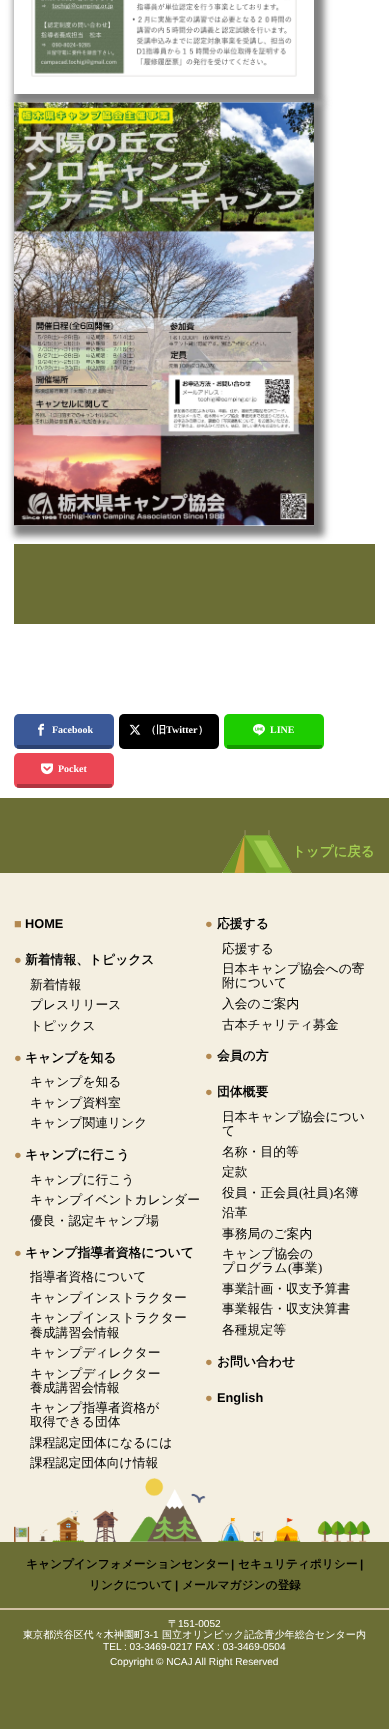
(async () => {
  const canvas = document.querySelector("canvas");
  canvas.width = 389;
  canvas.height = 1729;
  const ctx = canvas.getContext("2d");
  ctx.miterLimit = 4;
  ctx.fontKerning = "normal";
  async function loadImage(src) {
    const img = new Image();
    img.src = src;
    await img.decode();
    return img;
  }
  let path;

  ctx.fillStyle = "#ffffff";
  ctx.fillRect(0, 0, 389, 1729);
  ctx.save();
  path = new Path2D("M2 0H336V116H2ZM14-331H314V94H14Z");
  ctx.clip(path, "evenodd");
  ctx.fillStyle = "#808080";
  ctx.filter = "blur(3.5px)";
  ctx.beginPath();
  ctx.rect(14, -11, 310, 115);
  ctx.fill();
  ctx.filter = "none";
  ctx.restore();
  ctx.drawImage(await loadImage("img/1.png"), 31, 0, 266, 77);
  ctx.fillStyle = "#6b6e35";
  ctx.fillRect(14, 544, 361, 80);
  ctx.fillStyle = "#808080";
  ctx.filter = "blur(3.5px)";
  ctx.beginPath();
  ctx.rect(14, 102, 310, 434);
  ctx.fill();
  ctx.filter = "none";
  ctx.drawImage(await loadImage("img/2.png"), 14, 102, 300, 424);
  ctx.fillStyle = "#3b5998";
  ctx.beginPath();
  ctx.roundRect(14, 714, 100, 35, 5);
  ctx.fill();
  ctx.fillStyle = "rgba(0, 0, 0, 0.25)";
  ctx.fillRect(17, 745, 95, 4);
  ctx.drawImage(await loadImage("img/3.png"), 38, 723, 6, 13);
  ctx.fillStyle = "#000000";
  ctx.beginPath();
  ctx.roundRect(119, 714, 100, 35, 5);
  ctx.fill();
  ctx.fillStyle = "rgba(0, 0, 0, 0.25)";
  ctx.fillRect(122, 748, 95, 1);
  ctx.drawImage(await loadImage("img/4.png"), 129, 724, 12, 11);
  ctx.fillStyle = "#1dcd00";
  ctx.beginPath();
  ctx.roundRect(224, 714, 100, 35, 5);
  ctx.fill();
  ctx.fillStyle = "rgba(0, 0, 0, 0.25)";
  ctx.fillRect(227, 745, 95, 4);
  ctx.drawImage(await loadImage("img/5.png"), 253, 724, 12, 12);
  ctx.fillStyle = "#eb4654";
  ctx.beginPath();
  ctx.roundRect(14, 753, 100, 35, 5);
  ctx.fill();
  ctx.fillStyle = "rgba(0, 0, 0, 0.25)";
  ctx.fillRect(17, 784, 95, 4);
  ctx.drawImage(await loadImage("img/6.png"), 41, 763, 12, 12);
  ctx.fillStyle = "#6b6e35";
  ctx.fillRect(0, 798, 389, 931);
  ctx.drawImage(await loadImage("img/7.png"), 222, 830, 70, 43);
  ctx.fillStyle = "#f4efe1";
  ctx.fillRect(0, 873, 389, 669);
  ctx.drawImage(await loadImage("img/8.png"), 14, 1478, 356, 64);
  ctx.fillStyle = "#d1c0a5";
  ctx.fillRect(0, 1608, 389, 2);
  ctx.font = "bold 10px Liberation Serif";
  ctx.fillStyle = "#ffffff";
  ctx.fillText("Facebook", 52, 733);
  ctx.font = "bold 10px WenQuanYi Zen Hei";
  ctx.fillText("（旧", 146, 733);
  ctx.font = "bold 10px Liberation Serif";
  ctx.fillText("Twitter", 166, 733);
  ctx.font = "bold 10px WenQuanYi Zen Hei";
  ctx.fillText("）", 198, 733);
  ctx.font = "bold 10px Liberation Serif";
  ctx.fillText("LINE", 270, 733);
  ctx.fillText("Pocket", 58, 772);
  ctx.font = "bold 13.5px WenQuanYi Zen Hei";
  ctx.fillStyle = "#a2cc50";
  ctx.fillText("トップに戻る", 292, 856);
  ctx.font = "bold 12.8px Liberation Sans";
  ctx.fillStyle = "#b28850";
  ctx.fillText("■", 14, 928);
  ctx.fillStyle = "#000000";
  ctx.fillText("HOME", 25, 928);
  ctx.fillStyle = "#b28850";
  ctx.fillText("●", 14, 964);
  ctx.font = "bold 12.8px WenQuanYi Zen Hei";
  ctx.fillStyle = "#000000";
  ctx.fillText("新着情報、トピックス", 25, 964);
  ctx.font = "500 12.8px WenQuanYi Zen Hei";
  for (const [text, x, y] of [
    ["新着情報", 30, 989],
    ["プレスリリース", 30, 1009],
    ["トピックス", 30, 1030],
  ]) {
    ctx.fillText(text, x, y);
  }
  ctx.font = "bold 12.8px Liberation Sans";
  ctx.fillStyle = "#b28850";
  ctx.fillText("●", 14, 1062);
  ctx.font = "bold 12.8px WenQuanYi Zen Hei";
  ctx.fillStyle = "#000000";
  ctx.fillText("キャンプを知る", 25, 1062);
  ctx.font = "500 12.8px WenQuanYi Zen Hei";
  for (const [text, x, y] of [
    ["キャンプを知る", 30, 1086],
    ["キャンプ資料室", 30, 1107],
    ["キャンプ関連リンク", 30, 1127],
  ]) {
    ctx.fillText(text, x, y);
  }
  ctx.font = "bold 12.8px Liberation Sans";
  ctx.fillStyle = "#b28850";
  ctx.fillText("●", 14, 1159);
  ctx.font = "bold 12.8px WenQuanYi Zen Hei";
  ctx.fillStyle = "#000000";
  ctx.fillText("キャンプに行こう", 25, 1159);
  ctx.font = "500 12.8px WenQuanYi Zen Hei";
  for (const [text, x, y] of [
    ["キャンプに行こう", 30, 1184],
    ["キャンプイベントカレンダー", 30, 1204],
    ["優良・認定キャンプ場", 30, 1225],
  ]) {
    ctx.fillText(text, x, y);
  }
  ctx.font = "bold 12.8px Liberation Sans";
  ctx.fillStyle = "#b28850";
  ctx.fillText("●", 14, 1257);
  ctx.font = "bold 12.8px WenQuanYi Zen Hei";
  ctx.fillStyle = "#000000";
  ctx.fillText("キャンプ指導者資格について", 25, 1257);
  ctx.font = "500 12.8px WenQuanYi Zen Hei";
  for (const [text, x, y] of [
    ["指導者資格について", 30, 1281],
    ["キャンプインストラクター", 30, 1302],
    ["キャンプインストラクター", 30, 1322],
    ["養成講習会情報", 30, 1337],
    ["キャンプディレクター", 30, 1357],
    ["キャンプディレクター", 30, 1378],
    ["養成講習会情報", 30, 1392],
    ["キャンプ指導者資格が", 30, 1412],
    ["取得できる団体", 30, 1426],
    ["課程認定団体になるには", 30, 1447],
    ["課程認定団体向け情報", 30, 1467],
  ]) {
    ctx.fillText(text, x, y);
  }
  ctx.font = "bold 12.8px Liberation Sans";
  ctx.fillStyle = "#b28850";
  ctx.fillText("●", 205, 928);
  ctx.font = "bold 12.8px WenQuanYi Zen Hei";
  ctx.fillStyle = "#000000";
  ctx.fillText("応援する", 217, 928);
  ctx.font = "500 12.8px WenQuanYi Zen Hei";
  for (const [text, x, y] of [
    ["応援する", 222, 953],
    ["日本キャンプ協会への寄", 222, 973],
    ["附について", 222, 987],
    ["入会のご案内", 222, 1008],
    ["古本チャリティ募金", 222, 1029],
  ]) {
    ctx.fillText(text, x, y);
  }
  ctx.font = "bold 12.8px Liberation Sans";
  ctx.fillStyle = "#b28850";
  ctx.fillText("●", 205, 1060);
  ctx.font = "bold 12.8px WenQuanYi Zen Hei";
  ctx.fillStyle = "#000000";
  ctx.fillText("会員の方", 217, 1060);
  ctx.font = "bold 12.8px Liberation Sans";
  ctx.fillStyle = "#b28850";
  ctx.fillText("●", 205, 1096);
  ctx.font = "bold 12.8px WenQuanYi Zen Hei";
  ctx.fillStyle = "#000000";
  ctx.fillText("団体概要", 217, 1096);
  ctx.font = "500 12.8px WenQuanYi Zen Hei";
  for (const [text, x, y] of [
    ["日本キャンプ協会につい", 222, 1121],
    ["て", 222, 1135],
    ["名称・目的等", 222, 1156],
    ["定款", 222, 1176],
    ["役員・正会員", 222, 1197],
  ]) {
    ctx.fillText(text, x, y);
  }
  ctx.font = "12.8px Liberation Serif";
  ctx.fillText("(", 299, 1197);
  ctx.font = "500 12.8px WenQuanYi Zen Hei";
  ctx.fillText("社員", 303, 1197);
  ctx.font = "12.8px Liberation Serif";
  ctx.fillText(")", 329, 1197);
  ctx.font = "500 12.8px WenQuanYi Zen Hei";
  for (const [text, x, y] of [
    ["名簿", 333, 1197],
    ["沿革", 222, 1217],
    ["事務局のご案内", 222, 1238],
    ["キャンプ協会の", 222, 1258],
    ["プログラム", 222, 1272],
  ]) {
    ctx.fillText(text, x, y);
  }
  ctx.font = "12.8px Liberation Serif";
  ctx.fillText("(", 288, 1272);
  ctx.font = "500 12.8px WenQuanYi Zen Hei";
  ctx.fillText("事業", 292, 1272);
  ctx.font = "12.8px Liberation Serif";
  ctx.fillText(")", 318, 1272);
  ctx.font = "500 12.8px WenQuanYi Zen Hei";
  for (const [text, x, y] of [
    ["事業計画・収支予算書", 222, 1293],
    ["事業報告・収支決算書", 222, 1313],
    ["各種規定等", 222, 1334],
  ]) {
    ctx.fillText(text, x, y);
  }
  ctx.font = "bold 12.8px Liberation Sans";
  ctx.fillStyle = "#b28850";
  ctx.fillText("●", 205, 1366);
  ctx.font = "bold 12.8px WenQuanYi Zen Hei";
  ctx.fillStyle = "#000000";
  ctx.fillText("お問い合わせ", 217, 1366);
  ctx.font = "bold 12.8px Liberation Sans";
  ctx.fillStyle = "#b28850";
  ctx.fillText("●", 205, 1402);
  ctx.fillStyle = "#000000";
  ctx.fillText("English", 217, 1402);
  ctx.font = "bold 11.7px WenQuanYi Zen Hei";
  ctx.fillText("キャンプインフォメーションセンター", 26, 1568);
  ctx.font = "bold 11.7px Liberation Sans";
  ctx.fillText("|", 231, 1568);
  ctx.font = "bold 11.7px WenQuanYi Zen Hei";
  ctx.fillText("セキュリティポリシー", 238, 1568);
  ctx.font = "bold 11.7px Liberation Sans";
  ctx.fillText("|", 360, 1568);
  ctx.font = "bold 11.7px WenQuanYi Zen Hei";
  ctx.fillText("リンクについて", 89, 1589);
  ctx.font = "bold 11.7px Liberation Sans";
  ctx.fillText("|", 175, 1589);
  ctx.font = "bold 11.7px WenQuanYi Zen Hei";
  ctx.fillText("メールマガジンの登録", 182, 1589);
  ctx.font = "500 10.1px WenQuanYi Zen Hei";
  ctx.fillStyle = "#ffffff";
  ctx.fillText("〒", 168, 1627);
  ctx.font = "10.1px Liberation Sans";
  ctx.fillText("151-0052", 178, 1627);
  ctx.font = "500 10.1px WenQuanYi Zen Hei";
  ctx.fillText("東京都渋谷区代々木神園町", 23, 1638);
  ctx.font = "10.1px Liberation Sans";
  ctx.fillText("3-1", 144, 1638);
  ctx.font = "500 10.1px WenQuanYi Zen Hei";
  ctx.fillText("国立オリンピック記念青少年総合センター内", 162, 1638);
  ctx.font = "10.1px Liberation Sans";
  ctx.fillText("TEL : 03-3469-0217 FAX : 03-3469-0504", 103, 1650);
  ctx.fillText("Copyright © NCAJ All Right Reserved", 110, 1665);
})();
